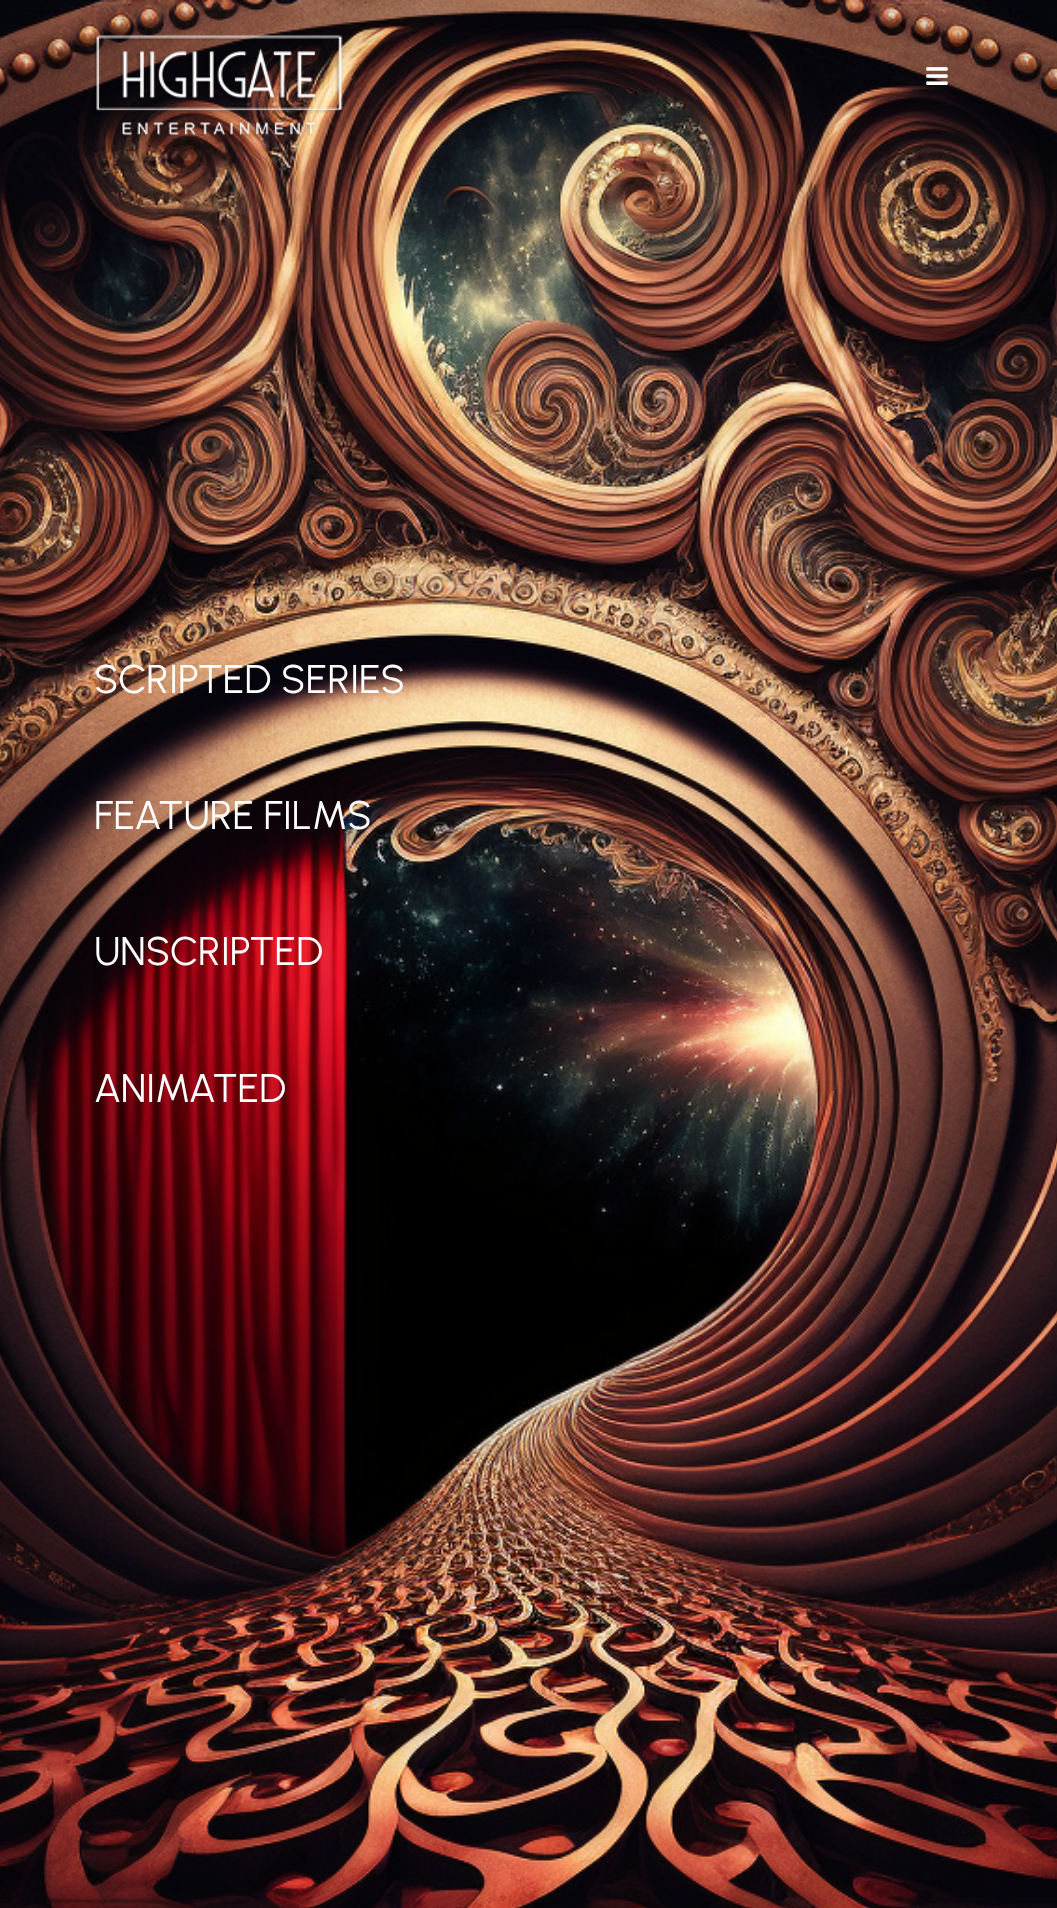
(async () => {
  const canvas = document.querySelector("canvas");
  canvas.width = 1057;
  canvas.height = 1908;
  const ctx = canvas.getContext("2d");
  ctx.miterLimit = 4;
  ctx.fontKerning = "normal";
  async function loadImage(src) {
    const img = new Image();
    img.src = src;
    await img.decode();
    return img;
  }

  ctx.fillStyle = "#ffffff";
  ctx.fillRect(0, 0, 1057, 1908);
  ctx.drawImage(await loadImage("img/1.png"), 0, 0, 1057, 1908);
  ctx.drawImage(await loadImage("img/2.png"), 94, 34, 249, 103);
  ctx.drawImage(await loadImage("img/3.png"), 926, 67, 22, 18);
  ctx.font = "40px Urbanist";
  for (const [text, x, y] of [
    ["SCRIPTED SERIES", 94, 693],
    ["FEATURE FILMS", 94, 829],
    ["UNSCRIPTED", 94, 965],
    ["ANIMATED", 94, 1102],
  ]) {
    ctx.fillText(text, x, y);
  }
})();
